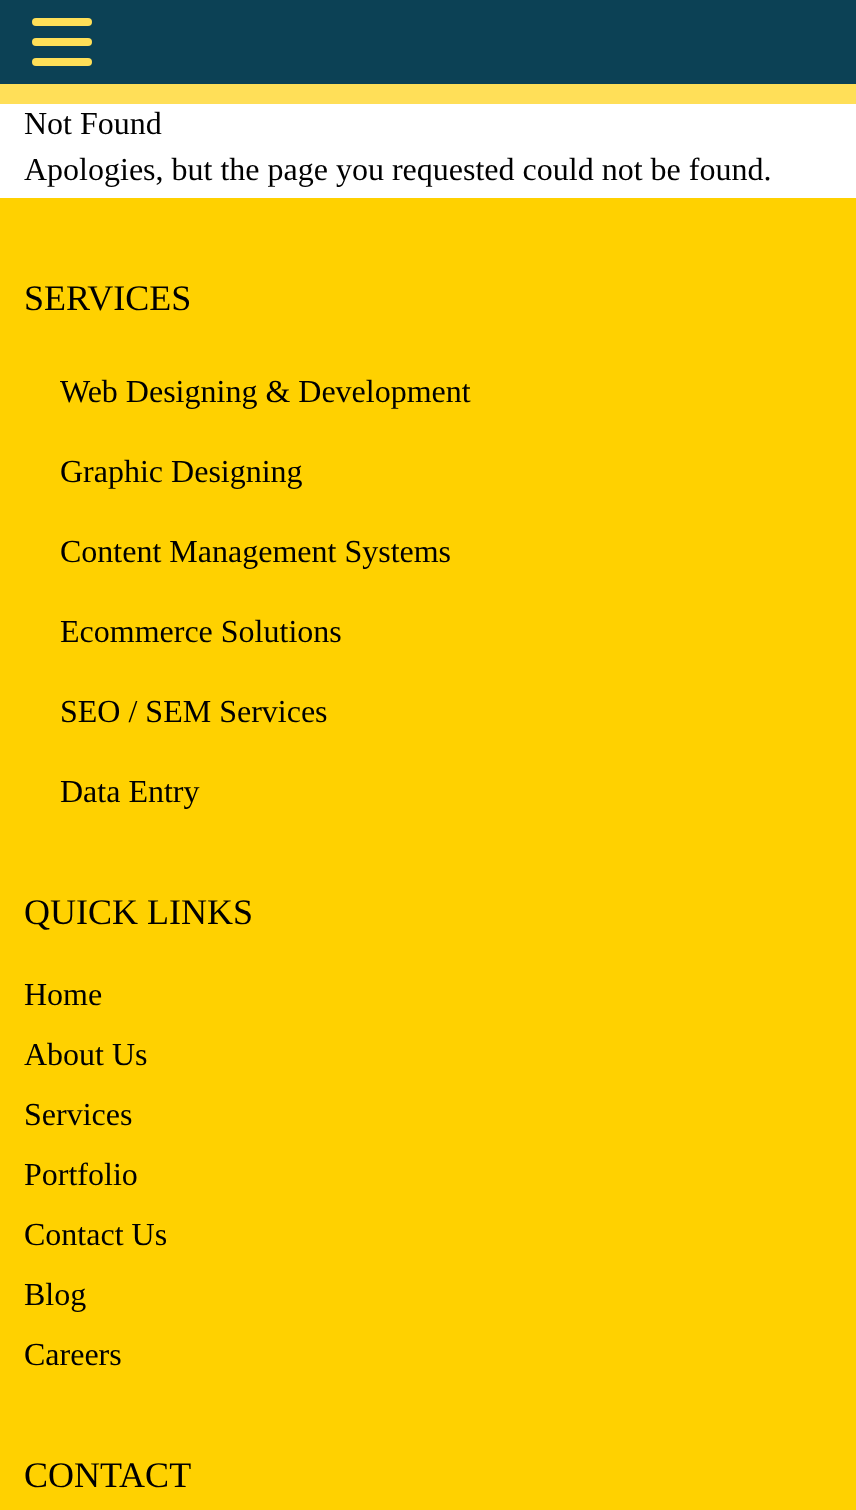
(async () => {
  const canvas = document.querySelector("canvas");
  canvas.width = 856;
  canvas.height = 1510;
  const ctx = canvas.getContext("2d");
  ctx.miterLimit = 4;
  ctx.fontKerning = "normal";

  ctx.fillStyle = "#ffffff";
  ctx.fillRect(0, 0, 856, 1510);
  ctx.fillStyle = "#0c4155";
  ctx.fillRect(0, 0, 856, 84);
  ctx.fillStyle = "#ffdf58";
  ctx.beginPath();
  ctx.roundRect(32, 18, 60, 8, 4);
  ctx.fill();
  ctx.beginPath();
  ctx.roundRect(32, 38, 60, 8, 4);
  ctx.fill();
  ctx.beginPath();
  ctx.roundRect(32, 58, 60, 8, 4);
  ctx.fill();
  ctx.fillRect(0, 84, 856, 20);
  ctx.fillStyle = "#ffd100";
  ctx.fillRect(0, 198, 856, 1312);
  ctx.font = "32px Liberation Serif";
  ctx.fillStyle = "#000000";
  ctx.fillText("Not Found", 24, 134);
  ctx.fillText("Apologies, but the page you requested could not be found.", 24, 180);
  ctx.font = "36px Liberation Serif";
  ctx.fillText("SERVICES", 24, 310);
  ctx.font = "32px Liberation Serif";
  for (const [text, x, y] of [
    ["Web Designing & Development", 60, 402],
    ["Graphic Designing", 60, 482],
    ["Content Management Systems", 60, 562],
    ["Ecommerce Solutions", 60, 642],
    ["SEO / SEM Services", 60, 722],
    ["Data Entry", 60, 802],
  ]) {
    ctx.fillText(text, x, y);
  }
  ctx.font = "36px Liberation Serif";
  ctx.fillText("QUICK LINKS", 24, 924);
  ctx.font = "32px Liberation Serif";
  for (const [text, x, y] of [
    ["Home", 24, 1005],
    ["About Us", 24, 1065],
    ["Services", 24, 1125],
    ["Portfolio", 24, 1185],
    ["Contact Us", 24, 1245],
    ["Blog", 24, 1305],
    ["Careers", 24, 1365],
  ]) {
    ctx.fillText(text, x, y);
  }
  ctx.font = "36px Liberation Serif";
  ctx.fillText("CONTACT", 24, 1487);
})();
